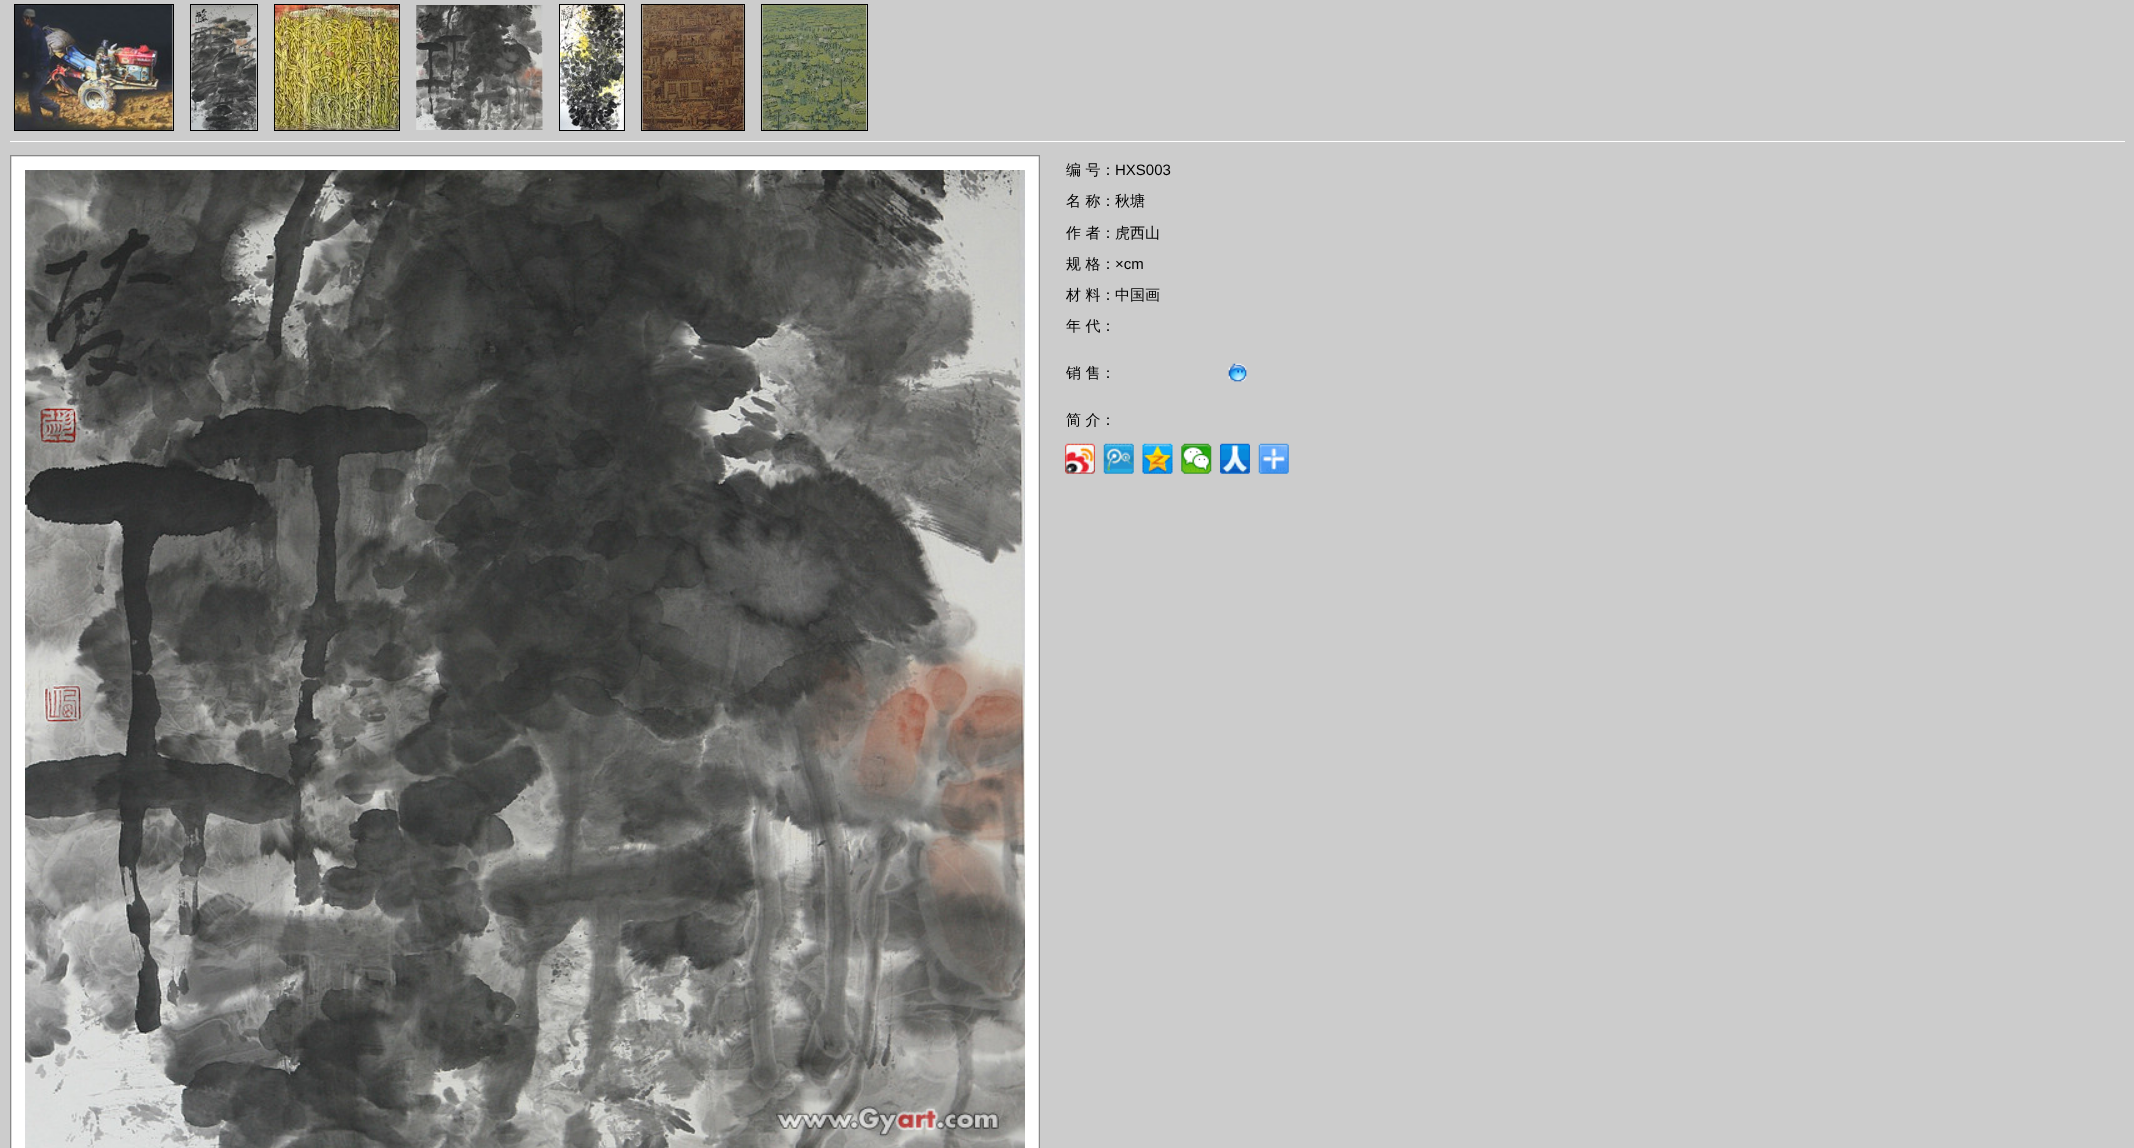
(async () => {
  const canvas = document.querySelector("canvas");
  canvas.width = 2134;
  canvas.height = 1148;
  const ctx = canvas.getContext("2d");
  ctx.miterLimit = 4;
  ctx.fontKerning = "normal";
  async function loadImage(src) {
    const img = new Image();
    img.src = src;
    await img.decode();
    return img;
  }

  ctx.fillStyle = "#cccccc";
  ctx.fillRect(0, 0, 2134, 1148);
  ctx.strokeStyle = "#000000";
  ctx.strokeRect(14.5, 4.5, 159, 126);
  ctx.drawImage(await loadImage("img/1.png"), 15, 5, 158, 125);
  ctx.strokeRect(190.5, 4.5, 67, 126);
  ctx.drawImage(await loadImage("img/2.png"), 191, 5, 66, 125);
  ctx.strokeRect(274.5, 4.5, 125, 126);
  ctx.drawImage(await loadImage("img/3.png"), 275, 5, 124, 125);
  ctx.drawImage(await loadImage("img/4.png"), 416, 5, 127, 125);
  ctx.strokeRect(559.5, 4.5, 65, 126);
  ctx.drawImage(await loadImage("img/5.png"), 560, 5, 64, 125);
  ctx.strokeRect(641.5, 4.5, 103, 126);
  ctx.drawImage(await loadImage("img/6.png"), 642, 5, 102, 125);
  ctx.strokeRect(761.5, 4.5, 106, 126);
  ctx.drawImage(await loadImage("img/7.png"), 762, 5, 105, 125);
  ctx.fillStyle = "#ffffff";
  ctx.fillRect(10, 141, 2115, 1);
  ctx.drawImage(await loadImage("img/8.png"), 10, 155, 15, 15);
  ctx.drawImage(await loadImage("img/9.png"), 25, 155, 1000, 15);
  ctx.drawImage(await loadImage("img/10.png"), 1025, 155, 15, 15);
  ctx.drawImage(await loadImage("img/11.png"), 10, 170, 15, 978);
  ctx.drawImage(await loadImage("img/12.png"), 25, 170, 1000, 978);
  ctx.drawImage(await loadImage("img/13.png"), 1025, 170, 15, 978);
  ctx.drawImage(await loadImage("img/14.png"), 1228, 363, 19, 19);
  ctx.drawImage(await loadImage("img/15.png"), 1065, 443, 30, 31);
  ctx.drawImage(await loadImage("img/16.png"), 1103, 443, 31, 31);
  ctx.drawImage(await loadImage("img/17.png"), 1142, 443, 31, 31);
  ctx.drawImage(await loadImage("img/18.png"), 1181, 443, 31, 31);
  ctx.drawImage(await loadImage("img/19.png"), 1220, 443, 30, 31);
  ctx.drawImage(await loadImage("img/20.png"), 1258, 443, 31, 31);
  ctx.font = "500 15px WenQuanYi Zen Hei";
  ctx.fillStyle = "#000000";
  ctx.fillText("编 号：", 1066, 175);
  ctx.font = "15px Liberation Sans";
  ctx.fillText("HXS003", 1115, 175);
  ctx.font = "500 15px WenQuanYi Zen Hei";
  for (const [text, x, y] of [
    ["名 称：", 1066, 206],
    ["秋塘", 1115, 206],
    ["作 者：", 1066, 238],
    ["虎西山", 1115, 238],
    ["规 格：", 1066, 269],
  ]) {
    ctx.fillText(text, x, y);
  }
  ctx.font = "15px Liberation Sans";
  ctx.fillText("×cm", 1115, 269);
  ctx.font = "500 15px WenQuanYi Zen Hei";
  for (const [text, x, y] of [
    ["材 料：", 1066, 300],
    ["中国画", 1115, 300],
    ["年 代：", 1066, 331],
    ["销 售：", 1066, 378],
    ["简 介：", 1066, 425],
  ]) {
    ctx.fillText(text, x, y);
  }
})();
